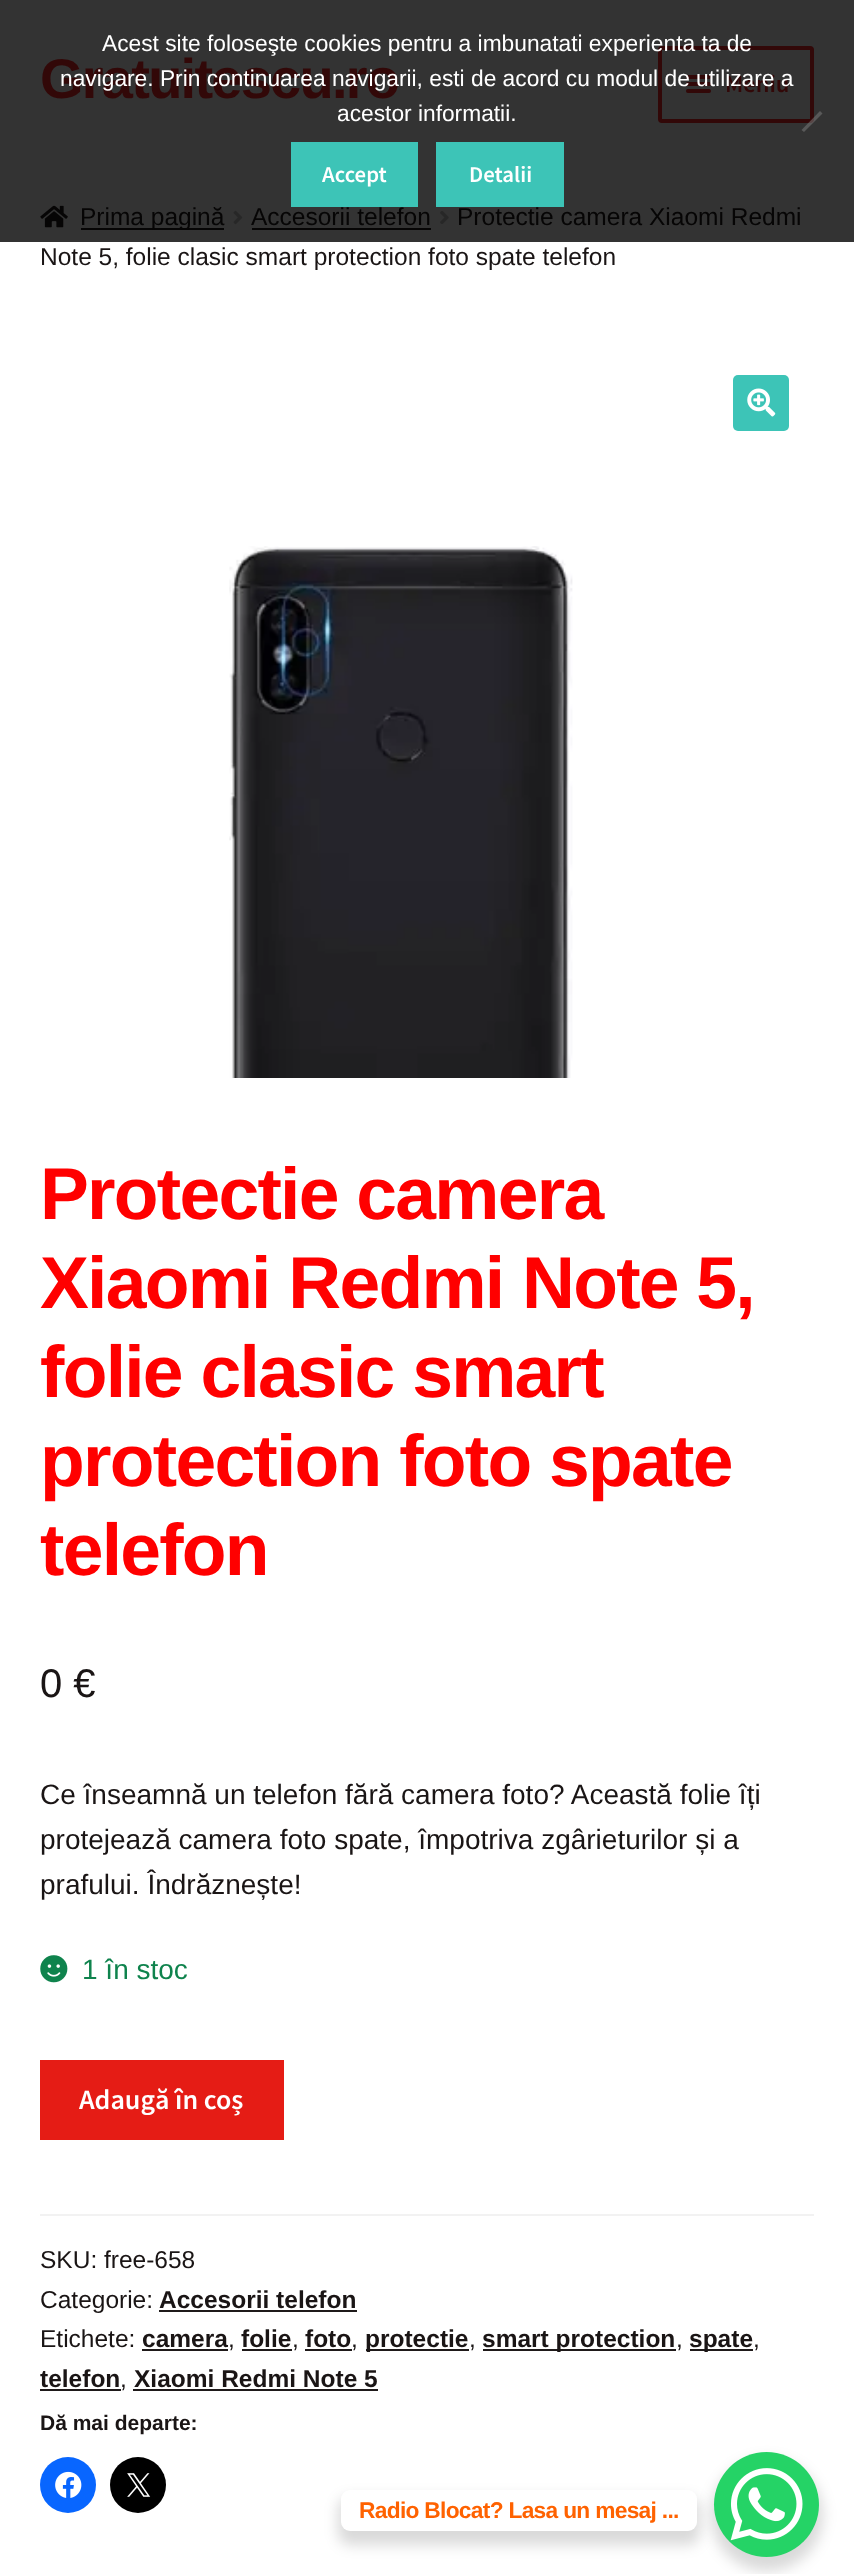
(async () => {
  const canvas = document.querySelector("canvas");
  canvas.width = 854;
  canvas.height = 2574;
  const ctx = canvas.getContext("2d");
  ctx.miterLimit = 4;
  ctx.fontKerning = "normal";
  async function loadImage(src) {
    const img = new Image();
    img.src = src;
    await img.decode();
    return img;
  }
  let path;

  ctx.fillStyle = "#ffffff";
  ctx.fillRect(0, 0, 854, 2574);
  ctx.fillStyle = "#333333";
  ctx.fillRect(0, 0, 854, 242);
  ctx.beginPath();
  ctx.roundRect(660, 48, 152, 73, 2);
  ctx.strokeStyle = "#320808";
  ctx.lineWidth = 4;
  ctx.stroke();
  ctx.fillStyle = "rgba(128, 128, 128, 0.5)";
  path = new Path2D("M820 111L822.5 113.5L804 132L801.5 130Z");
  ctx.fill(path);
  ctx.fillStyle = "#3dc4b7";
  ctx.fillRect(291, 142, 127, 65);
  ctx.fillRect(436, 142, 128, 65);
  ctx.fillStyle = "#320808";
  ctx.beginPath();
  ctx.roundRect(686, 75, 25, 4, 2);
  ctx.fill();
  ctx.beginPath();
  ctx.roundRect(686, 82, 25, 4, 2);
  ctx.fill();
  ctx.beginPath();
  ctx.roundRect(686, 89, 25, 4, 2);
  ctx.fill();
  ctx.drawImage(await loadImage("img/1.png"), 40, 205, 28, 23);
  ctx.fillStyle = "#060505";
  ctx.fillRect(81, 228, 143, 2);
  ctx.drawImage(await loadImage("img/2.png"), 233, 210, 10, 15);
  ctx.fillRect(252, 228, 179, 2);
  ctx.drawImage(await loadImage("img/3.png"), 440, 211, 9, 13);
  ctx.fillStyle = "#3dc4b7";
  ctx.beginPath();
  ctx.roundRect(733, 375, 56, 56, 5);
  ctx.fill();
  ctx.drawImage(await loadImage("img/4.png"), 747, 388, 29, 29);
  ctx.drawImage(await loadImage("img/5.png"), 229, 546, 344, 532);
  ctx.drawImage(await loadImage("img/6.png"), 40, 1955, 28, 28);
  for (const [x, y, w, h, color] of [
    [40, 2060, 244, 80, "#e51c15"],
    [40, 2214, 774, 2, "#f2f2f2"],
    [159, 2310, 198, 2, "#1f1a1a"],
    [142, 2349, 86, 2, "#1f1a1a"],
    [242, 2349, 50, 2, "#1f1a1a"],
    [305, 2349, 47, 2, "#1f1a1a"],
    [366, 2349, 103, 2, "#1f1a1a"],
    [483, 2349, 193, 2, "#1f1a1a"],
    [690, 2349, 63, 2, "#1f1a1a"],
    [40, 2389, 81, 2, "#1f1a1a"],
    [133, 2389, 245, 2, "#1f1a1a"],
  ]) {
    ctx.fillStyle = color;
    ctx.fillRect(x, y, w, h);
  }
  ctx.fillStyle = "#0866ff";
  ctx.beginPath();
  ctx.arc(68, 2485, 28, 0, Math.PI * 2);
  ctx.fill();
  ctx.drawImage(await loadImage("img/7.png"), 55, 2471, 27, 27);
  ctx.fillStyle = "#000000";
  ctx.beginPath();
  ctx.arc(138, 2485, 28, 0, Math.PI * 2);
  ctx.fill();
  ctx.drawImage(await loadImage("img/8.png"), 127, 2473, 24, 24);
  ctx.fillStyle = "rgba(0, 0, 0, 0.15)";
  ctx.filter = "blur(7px)";
  ctx.beginPath();
  ctx.roundRect(711, 2459, 112, 112, 56);
  ctx.fill();
  ctx.filter = "none";
  ctx.fillStyle = "#25d366";
  ctx.beginPath();
  ctx.arc(766.5, 2504.5, 52.5, 0, Math.PI * 2);
  ctx.fill();
  ctx.fillStyle = "rgba(0, 0, 0, 0.15)";
  ctx.filter = "blur(7px)";
  ctx.beginPath();
  ctx.roundRect(338, 2497, 362, 48, 12);
  ctx.fill();
  ctx.filter = "none";
  ctx.fillStyle = "#ffffff";
  ctx.beginPath();
  ctx.roundRect(341, 2490, 356, 41, 9);
  ctx.fill();
  ctx.drawImage(await loadImage("img/9.png"), 730, 2468, 73, 73);
  ctx.font = "22.75px Liberation Sans";
  ctx.fillText("Acest site foloseşte cookies pentru a imbunatati experienta ta de", 102, 51);
  ctx.fillText("acestor informatii.", 337, 121);
  ctx.font = "600 22.75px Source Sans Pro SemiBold";
  ctx.fillText("Accept", 322, 182);
  ctx.fillText("Detalii", 469, 182);
  ctx.letterSpacing = "-1.75px";
  ctx.font = "bold 56px Liberation Sans";
  ctx.fillStyle = "#320808";
  ctx.fillText("Gratuitescu.ro", 40, 98);
  ctx.letterSpacing = "0px";
  ctx.font = "600 24.5px Source Sans Pro SemiBold";
  ctx.fillText("Meniu", 725, 92);
  ctx.font = "22.75px Liberation Sans";
  ctx.fillStyle = "#ffffff";
  ctx.fillText("navigare. Prin continuarea navigarii, esti de acord cu modul de utilizare a", 60, 86);
  ctx.font = "24.5px Liberation Sans";
  ctx.fillStyle = "#060505";
  for (const [text, x, y] of [
    ["Prima pagină", 80, 225],
    ["Accesorii telefon", 251, 225],
    ["Protectie camera Xiaomi Redmi", 457, 225],
  ]) {
    ctx.fillText(text, x, y);
  }
  ctx.fillStyle = "#1a1515";
  ctx.fillText("Note 5, folie clasic smart protection foto spate telefon", 40, 265);
  ctx.letterSpacing = "-1.75px";
  ctx.font = "bold 73.25px Liberation Sans";
  ctx.fillStyle = "#ff0000";
  for (const [text, x, y] of [
    ["Protectie camera", 40, 1219],
    ["Xiaomi Redmi Note 5,", 40, 1308],
    ["folie clasic smart", 40, 1397],
    ["protection foto spate", 40, 1486],
    ["telefon", 40, 1575],
  ]) {
    ctx.fillText(text, x, y);
  }
  ctx.letterSpacing = "0px";
  ctx.font = "40px Liberation Sans";
  ctx.fillStyle = "#1a1515";
  ctx.fillText("0 €", 40, 1697);
  ctx.font = "28px Liberation Sans";
  for (const [text, x, y] of [
    ["Ce înseamnă un telefon fără camera foto? Această folie îți", 40, 1804],
    ["protejează camera foto spate, împotriva zgârieturilor și a", 40, 1849],
    ["prafului. Îndrăznește!", 40, 1894],
  ]) {
    ctx.fillText(text, x, y);
  }
  ctx.fillStyle = "#0f834d";
  ctx.fillText("1 în stoc", 82, 1979);
  ctx.font = "600 28px Source Sans Pro SemiBold";
  ctx.fillStyle = "#ffffff";
  ctx.fillText("Adaugă în coș", 79, 2109);
  ctx.font = "24.5px Liberation Sans";
  ctx.fillStyle = "#1a1515";
  ctx.fillText("SKU: free-658", 40, 2268);
  ctx.fillText("Categorie:", 40, 2308);
  ctx.font = "bold 24.5px Liberation Sans";
  ctx.fillText("Accesorii telefon", 159, 2308);
  ctx.font = "24.5px Liberation Sans";
  ctx.fillText("Etichete:", 40, 2347);
  ctx.font = "bold 24.5px Liberation Sans";
  ctx.fillText("camera", 142, 2347);
  ctx.font = "24.5px Liberation Sans";
  ctx.fillText(",", 228, 2347);
  ctx.font = "bold 24.5px Liberation Sans";
  ctx.fillText("folie", 241, 2347);
  ctx.font = "24.5px Liberation Sans";
  ctx.fillText(",", 292, 2347);
  ctx.font = "bold 24.5px Liberation Sans";
  ctx.fillText("foto", 305, 2347);
  ctx.font = "24.5px Liberation Sans";
  ctx.fillText(",", 351, 2347);
  ctx.font = "bold 24.5px Liberation Sans";
  ctx.fillText("protectie", 365, 2347);
  ctx.font = "24.5px Liberation Sans";
  ctx.fillText(",", 469, 2347);
  ctx.font = "bold 24.5px Liberation Sans";
  ctx.fillText("smart protection", 482, 2347);
  ctx.font = "24.5px Liberation Sans";
  ctx.fillText(",", 676, 2347);
  ctx.font = "bold 24.5px Liberation Sans";
  ctx.fillText("spate", 689, 2347);
  ctx.font = "24.5px Liberation Sans";
  ctx.fillText(",", 753, 2347);
  ctx.font = "bold 24.5px Liberation Sans";
  ctx.fillText("telefon", 40, 2387);
  ctx.font = "24.5px Liberation Sans";
  ctx.fillText(",", 120, 2387);
  ctx.font = "bold 24.5px Liberation Sans";
  ctx.fillText("Xiaomi Redmi Note 5", 134, 2387);
  ctx.font = "bold 21px Liberation Sans";
  ctx.fillText("Dă mai departe:", 40, 2430);
  ctx.letterSpacing = "-0.7px";
  ctx.font = "bold 22.75px Liberation Sans";
  ctx.fillStyle = "#ff6200";
  ctx.fillText("Radio Blocat? Lasa un mesaj ...", 359, 2518);
})();
